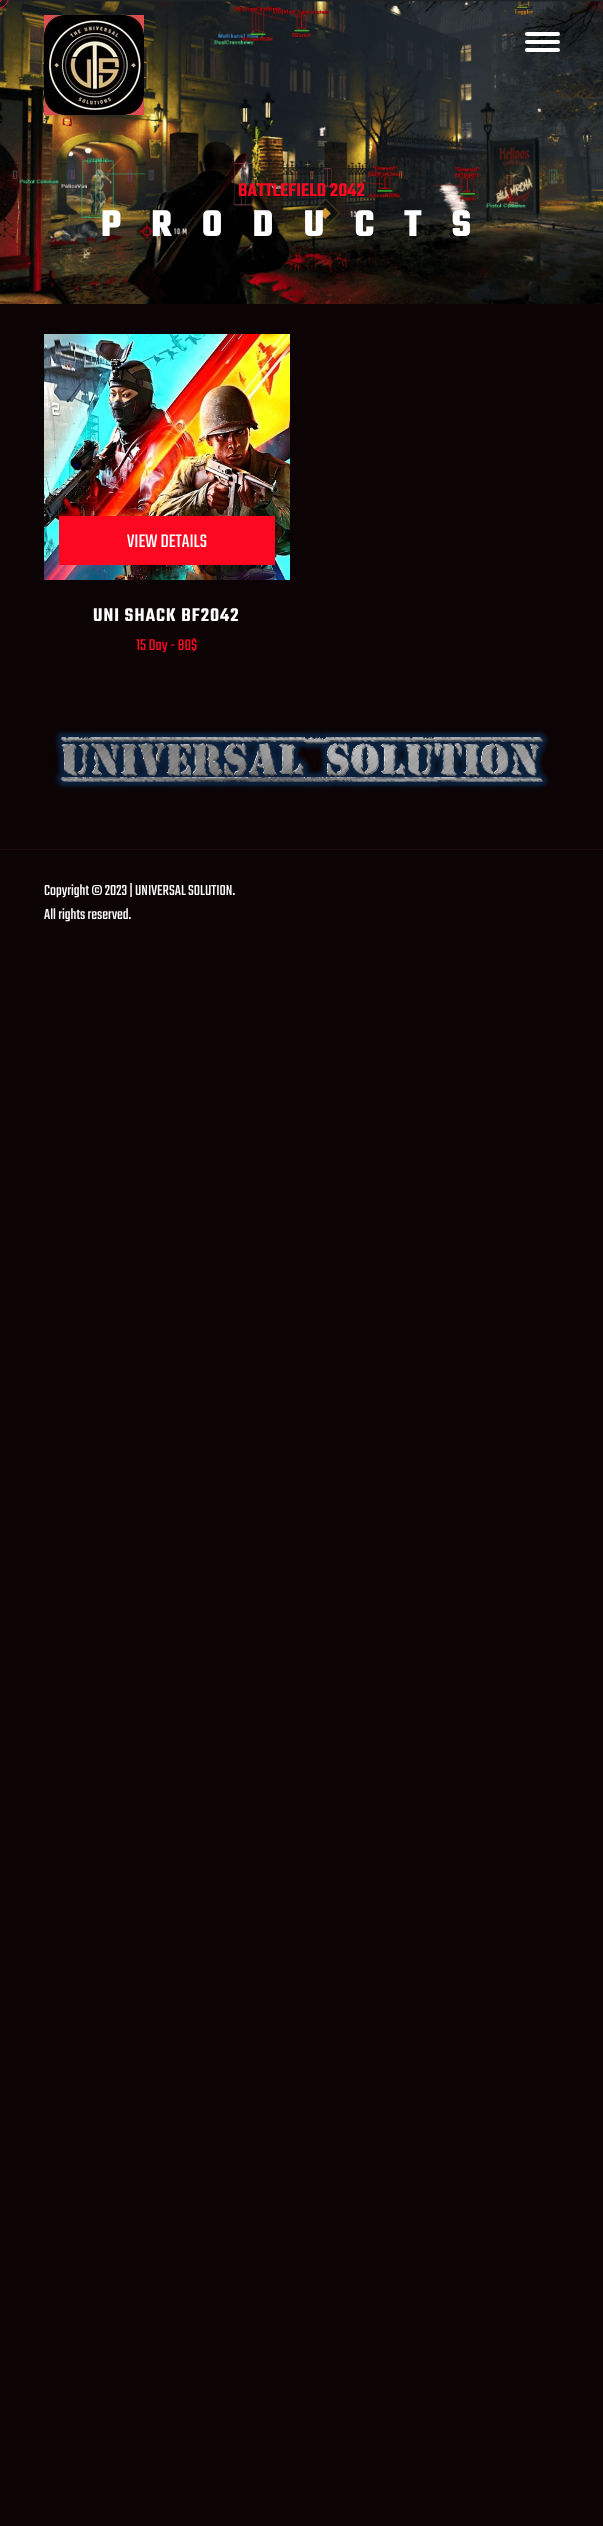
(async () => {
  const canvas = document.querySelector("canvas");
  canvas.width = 603;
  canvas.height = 2526;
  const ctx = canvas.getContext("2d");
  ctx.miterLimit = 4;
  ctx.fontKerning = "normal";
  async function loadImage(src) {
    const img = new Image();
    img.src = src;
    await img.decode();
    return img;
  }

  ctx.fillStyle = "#0c0305";
  ctx.fillRect(0, 0, 603, 2526);
  ctx.drawImage(await loadImage("img/2.png"), 0, 0, 603, 304);
  ctx.fillStyle = "#fc0820";
  ctx.beginPath();
  ctx.roundRect(-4, -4, 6, 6, 3.5);
  ctx.fill();
  ctx.beginPath();
  ctx.roundRect(-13.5, -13.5, 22, 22, 12);
  ctx.strokeStyle = "#fc0820";
  ctx.stroke();
  ctx.drawImage(await loadImage("img/1.png"), 44, 15, 100, 100);
  ctx.fillStyle = "#ffffff";
  ctx.beginPath();
  ctx.roundRect(525, 32, 35, 4, 2);
  ctx.fill();
  ctx.beginPath();
  ctx.roundRect(525, 40, 35, 4, 2);
  ctx.fill();
  ctx.beginPath();
  ctx.roundRect(525, 48, 35, 4, 2);
  ctx.fill();
  ctx.drawImage(await loadImage("img/3.png"), 44, 334, 246, 246);
  ctx.fillStyle = "#fc0820";
  ctx.fillRect(59, 516, 216, 49);
  ctx.drawImage(await loadImage("img/4.png"), 54, 730, 495, 59);
  ctx.fillStyle = "#1a0c09";
  ctx.fillRect(0, 849, 603, 1);
  ctx.font = "600 20px Teko";
  ctx.fillStyle = "#fc0820";
  ctx.fillText("BATTLEFIELD 2042", 238, 196);
  ctx.letterSpacing = "30px";
  ctx.font = "bold 40px Teko";
  ctx.fillStyle = "#ffffff";
  ctx.fillText("PRODUCTS", 101, 236);
  ctx.letterSpacing = "0px";
  ctx.font = "20px Teko";
  ctx.fillText("VIEW DETAILS", 127, 547);
  ctx.letterSpacing = "1px";
  ctx.font = "600 20px Teko";
  ctx.fillText("UNI SHACK BF2042", 93, 621);
  ctx.letterSpacing = "0px";
  ctx.font = "17px Teko";
  ctx.fillStyle = "#fc0820";
  ctx.fillText("15 Day - 80$", 136, 650);
  ctx.font = "16px Teko";
  ctx.fillStyle = "#ffffff";
  ctx.fillText("Copyright © 2023 | UNIVERSAL SOLUTION.", 44, 895);
  ctx.fillText("All rights reserved.", 44, 919);
})();
